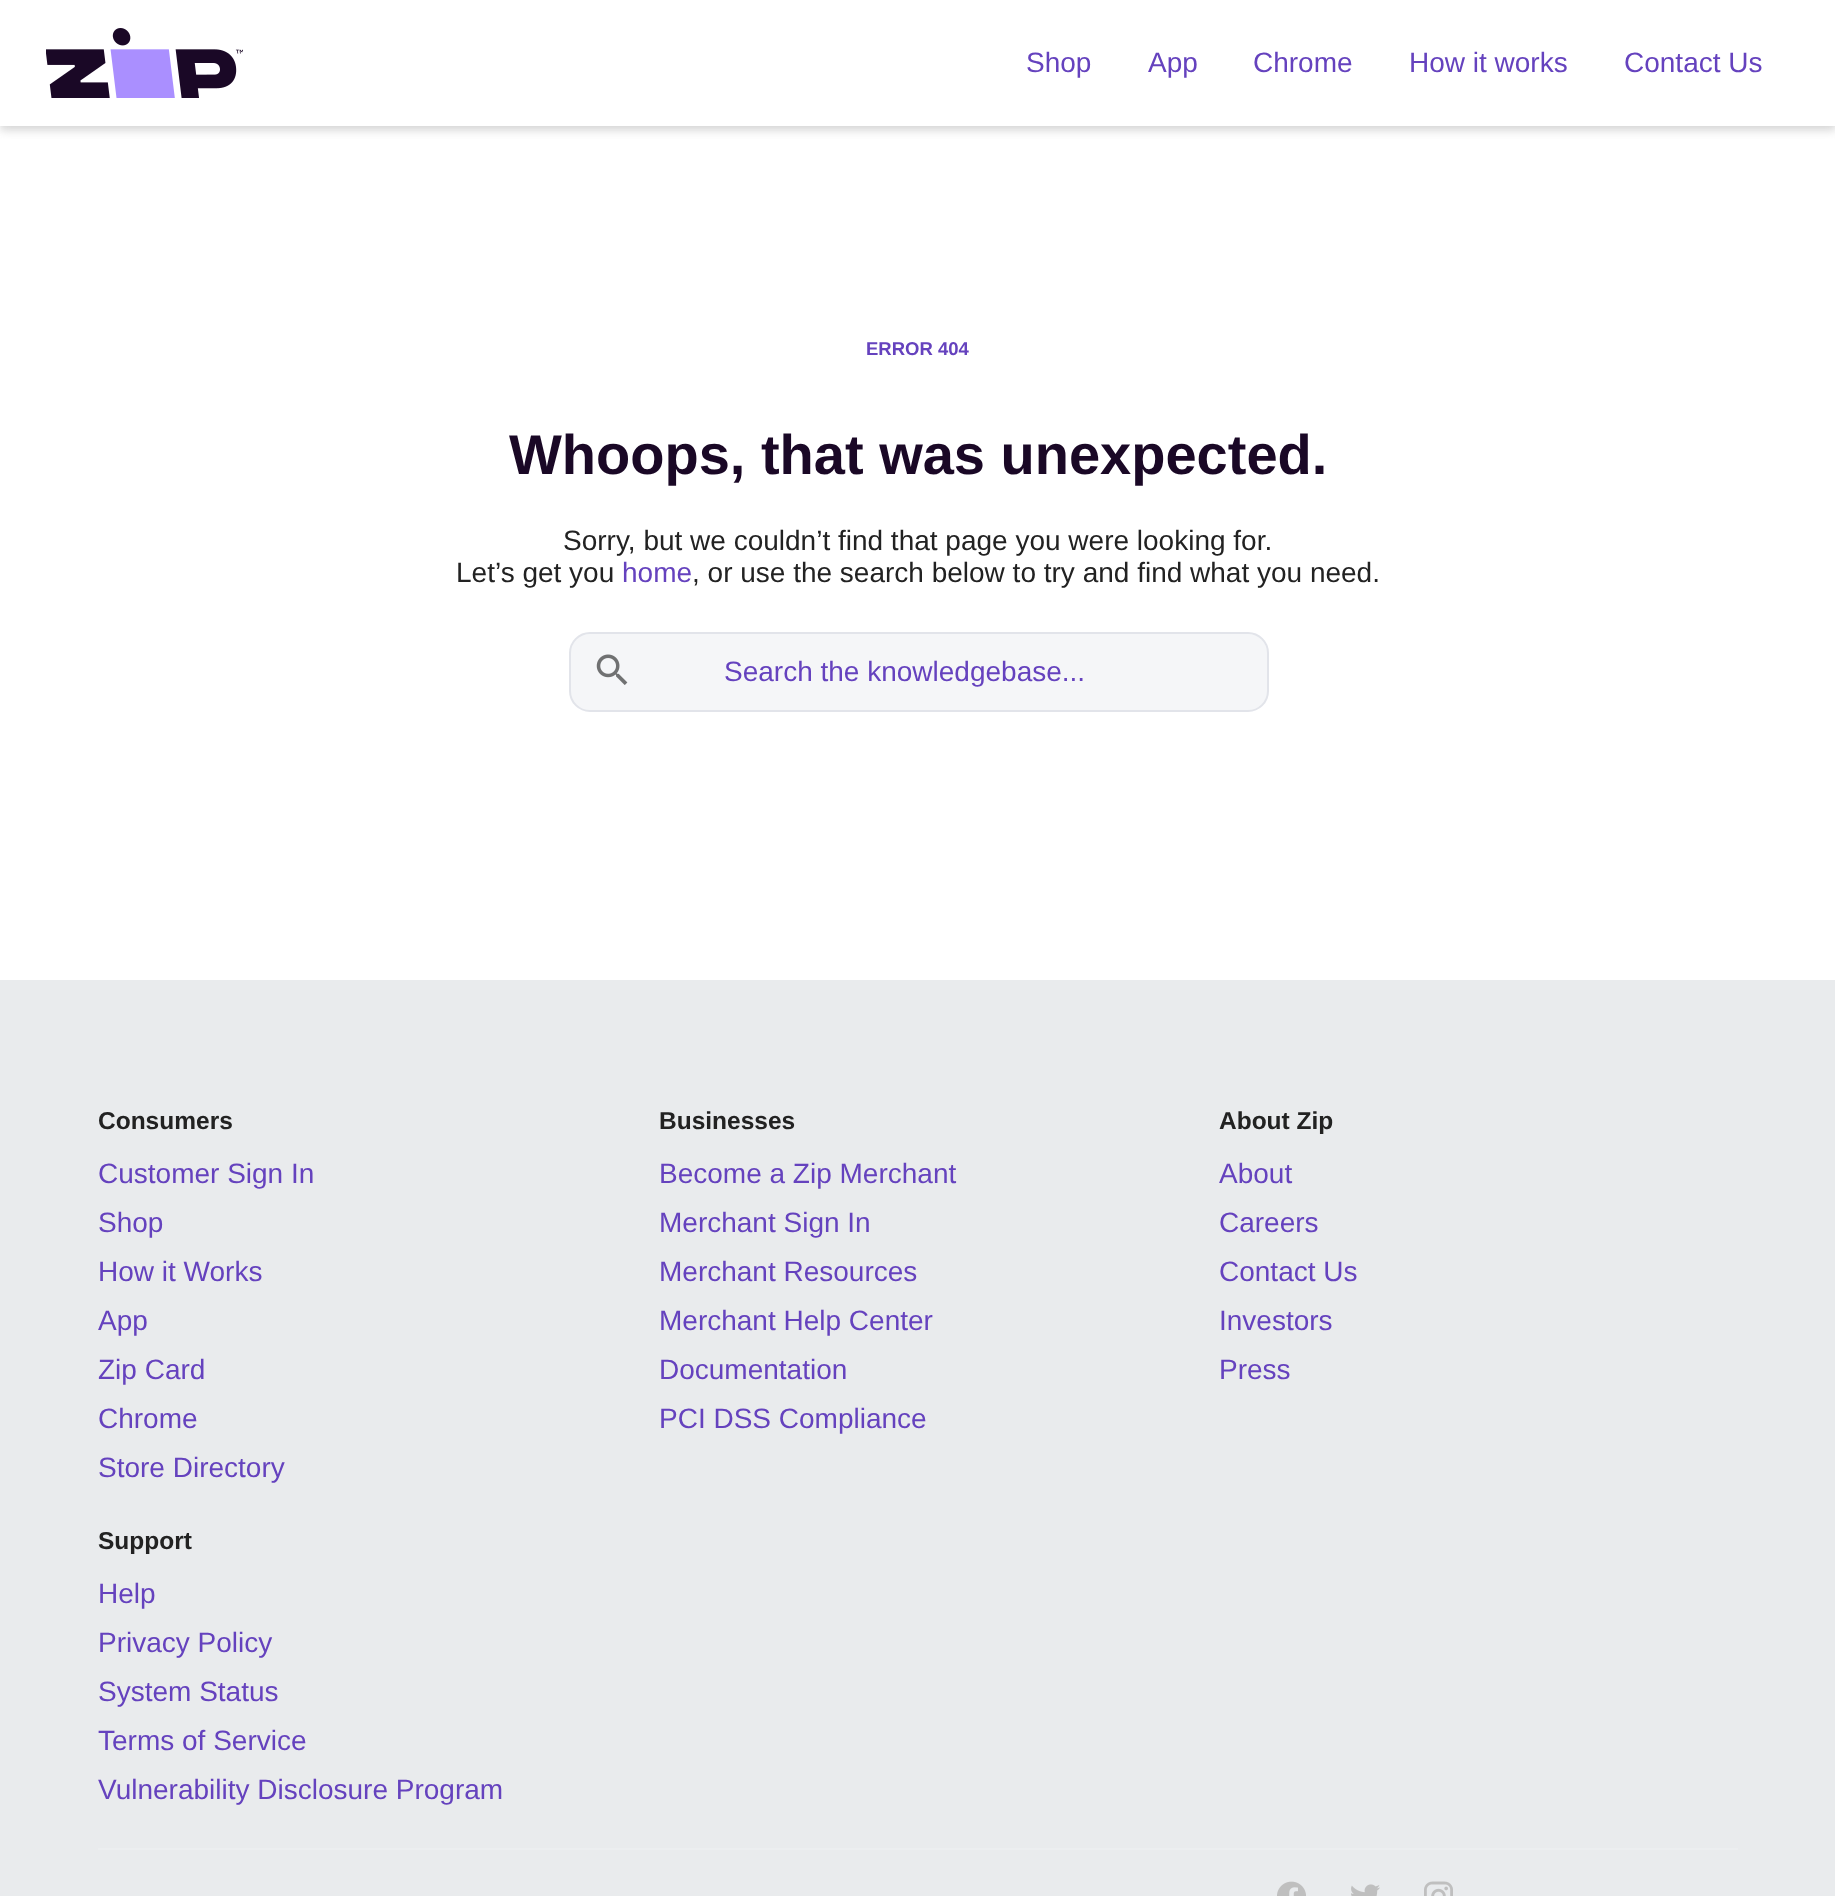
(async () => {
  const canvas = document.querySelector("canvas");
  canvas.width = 1835;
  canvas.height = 1896;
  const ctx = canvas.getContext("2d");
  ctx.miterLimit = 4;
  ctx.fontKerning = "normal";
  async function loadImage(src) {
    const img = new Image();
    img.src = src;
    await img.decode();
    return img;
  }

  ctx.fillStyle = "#ffffff";
  ctx.fillRect(0, 0, 1835, 1896);
  ctx.save();
  ctx.beginPath();
  ctx.rect(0, 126, 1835, 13);
  ctx.clip();
  ctx.fillStyle = "rgba(167, 167, 167, 0.5)";
  ctx.filter = "blur(5px)";
  ctx.beginPath();
  ctx.rect(0, 4, 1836, 126);
  ctx.fill();
  ctx.filter = "none";
  ctx.restore();
  ctx.drawImage(await loadImage("img/1.png"), 46, 28, 197, 70);
  ctx.fillStyle = "#f5f6f8";
  ctx.beginPath();
  ctx.roundRect(570, 633, 698, 78, 20);
  ctx.fill();
  ctx.strokeStyle = "#e2e4ea";
  ctx.lineWidth = 2;
  ctx.stroke();
  ctx.drawImage(await loadImage("img/2.png"), 596, 654, 32, 31);
  ctx.fillStyle = "#e9ebed";
  ctx.fillRect(0, 980, 1835, 916);
  ctx.fillStyle = "#eceef0";
  ctx.fillRect(98, 1848, 1640, 2);
  ctx.drawImage(await loadImage("img/3.png"), 1277, 1881, 29, 15);
  ctx.drawImage(await loadImage("img/4.png"), 1351, 1884, 29, 12);
  ctx.drawImage(await loadImage("img/5.png"), 1424, 1881, 29, 15);
  ctx.font = "28px Liberation Sans";
  ctx.fillStyle = "#6542be";
  for (const [text, x, y] of [
    ["Shop", 1026, 72],
    ["App", 1148, 72],
    ["Chrome", 1253, 72],
    ["How it works", 1409, 72],
    ["Contact Us", 1624, 72],
  ]) {
    ctx.fillText(text, x, y);
  }
  ctx.font = "bold 18.5px Liberation Sans";
  ctx.fillText("ERROR 404", 866, 355);
  ctx.font = "bold 56px Liberation Sans";
  ctx.fillStyle = "#1a0826";
  ctx.fillText("Whoops, that was unexpected.", 509, 474);
  ctx.font = "28px Liberation Sans";
  ctx.fillStyle = "#222222";
  ctx.fillText("Sorry, but we couldn’t find that page you were looking for.", 563, 550);
  ctx.fillText("Let’s get you", 456, 582);
  ctx.fillStyle = "#6542be";
  ctx.fillText("home", 622, 582);
  ctx.fillStyle = "#222222";
  ctx.fillText(", or use the search below to try and find what you need.", 692, 582);
  ctx.fillStyle = "#6542be";
  ctx.fillText("Search the knowledgebase...", 724, 681);
  ctx.font = "bold 24.5px Liberation Sans";
  ctx.fillStyle = "#222222";
  ctx.fillText("Consumers", 98, 1129);
  ctx.font = "28px Liberation Sans";
  ctx.fillStyle = "#6542be";
  for (const [text, x, y] of [
    ["Customer Sign In", 98, 1183],
    ["Shop", 98, 1232],
    ["How it Works", 98, 1281],
    ["App", 98, 1330],
    ["Zip Card", 98, 1379],
    ["Chrome", 98, 1428],
    ["Store Directory", 98, 1477],
  ]) {
    ctx.fillText(text, x, y);
  }
  ctx.font = "bold 24.5px Liberation Sans";
  ctx.fillStyle = "#222222";
  ctx.fillText("Businesses", 659, 1129);
  ctx.font = "28px Liberation Sans";
  ctx.fillStyle = "#6542be";
  for (const [text, x, y] of [
    ["Become a Zip Merchant", 659, 1183],
    ["Merchant Sign In", 659, 1232],
    ["Merchant Resources", 659, 1281],
    ["Merchant Help Center", 659, 1330],
    ["Documentation", 659, 1379],
    ["PCI DSS Compliance", 659, 1428],
  ]) {
    ctx.fillText(text, x, y);
  }
  ctx.font = "bold 24.5px Liberation Sans";
  ctx.fillStyle = "#222222";
  ctx.fillText("About Zip", 1219, 1129);
  ctx.font = "28px Liberation Sans";
  ctx.fillStyle = "#6542be";
  for (const [text, x, y] of [
    ["About", 1219, 1183],
    ["Careers", 1219, 1232],
    ["Contact Us", 1219, 1281],
    ["Investors", 1219, 1330],
    ["Press", 1219, 1379],
  ]) {
    ctx.fillText(text, x, y);
  }
  ctx.font = "bold 24.5px Liberation Sans";
  ctx.fillStyle = "#222222";
  ctx.fillText("Support", 98, 1549);
  ctx.font = "28px Liberation Sans";
  ctx.fillStyle = "#6542be";
  for (const [text, x, y] of [
    ["Help", 98, 1603],
    ["Privacy Policy", 98, 1652],
    ["System Status", 98, 1701],
    ["Terms of Service", 98, 1750],
    ["Vulnerability Disclosure Program", 98, 1799],
  ]) {
    ctx.fillText(text, x, y);
  }
})();
